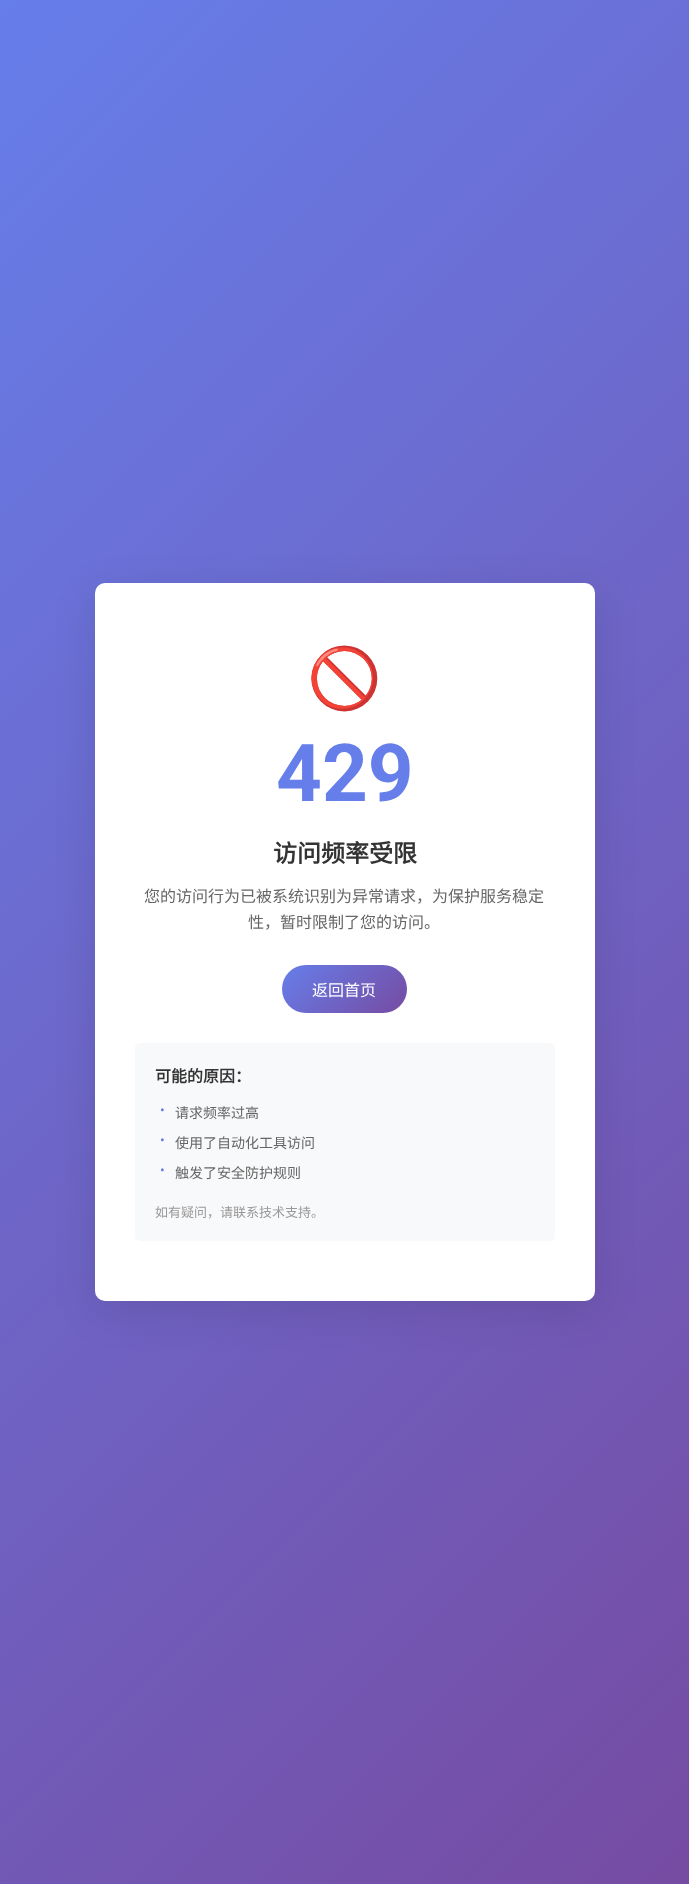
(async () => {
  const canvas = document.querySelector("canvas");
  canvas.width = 689;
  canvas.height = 1884;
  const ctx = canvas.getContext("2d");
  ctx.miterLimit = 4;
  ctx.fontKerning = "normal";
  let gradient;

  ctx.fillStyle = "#ffffff";
  ctx.fillRect(0, 0, 689, 1884);
  gradient = ctx.createLinearGradient(-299, 299, 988, 1585);
  gradient.addColorStop(0, "#667eea");
  gradient.addColorStop(1, "#764ba2");
  ctx.fillStyle = gradient;
  ctx.fillRect(0, 0, 689, 1884);
  ctx.fillStyle = "rgba(0, 0, 0, 0.1)";
  ctx.filter = "blur(20px)";
  ctx.beginPath();
  ctx.roundRect(95, 593, 500, 718, 10);
  ctx.fill();
  ctx.filter = "none";
  ctx.fillStyle = "#ffffff";
  ctx.beginPath();
  ctx.roundRect(95, 583, 500, 718, 10);
  ctx.fill();
  gradient = ctx.createLinearGradient(301, 946, 388, 1032);
  gradient.addColorStop(0, "#667eea");
  gradient.addColorStop(1, "#764ba2");
  ctx.fillStyle = gradient;
  ctx.beginPath();
  ctx.roundRect(282, 965, 125, 48, 24);
  ctx.fill();
  ctx.fillStyle = "#f8f9fa";
  ctx.beginPath();
  ctx.roundRect(135, 1043, 420, 198, 5);
  ctx.fill();
  ctx.font = "60px Noto Color Emoji";
  ctx.fillStyle = "#333333";
  ctx.fillText("🚫", 307, 699);
  ctx.font = "bold 80px Roboto";
  ctx.fillStyle = "#667eea";
  ctx.fillText("429", 276, 801);
  ctx.font = "bold 24px Noto Sans CJK SC";
  ctx.fillStyle = "#333333";
  ctx.fillText("访问频率受限", 273, 862);
  ctx.font = "16px Noto Sans CJK SC";
  ctx.fillStyle = "#666666";
  ctx.fillText("您的访问行为已被系统识别为异常请求，为保护服务稳定", 144, 902);
  ctx.fillText("性，暂时限制了您的访问。", 248, 928);
  ctx.fillStyle = "#ffffff";
  ctx.fillText("返回首页", 312, 996);
  ctx.font = "bold 16px Noto Sans CJK SC";
  ctx.fillStyle = "#333333";
  ctx.fillText("可能的原因：", 155, 1082);
  ctx.font = "14px Roboto";
  ctx.fillStyle = "#667eea";
  ctx.fillText("•", 160, 1115);
  ctx.font = "14px Noto Sans CJK SC";
  ctx.fillStyle = "#666666";
  ctx.fillText("请求频率过高", 175, 1118);
  ctx.font = "14px Roboto";
  ctx.fillStyle = "#667eea";
  ctx.fillText("•", 160, 1145);
  ctx.font = "14px Noto Sans CJK SC";
  ctx.fillStyle = "#666666";
  ctx.fillText("使用了自动化工具访问", 175, 1148);
  ctx.font = "14px Roboto";
  ctx.fillStyle = "#667eea";
  ctx.fillText("•", 160, 1175);
  ctx.font = "14px Noto Sans CJK SC";
  ctx.fillStyle = "#666666";
  ctx.fillText("触发了安全防护规则", 175, 1178);
  ctx.font = "13px Noto Sans CJK SC";
  ctx.fillStyle = "#999999";
  ctx.fillText("如有疑问，请联系技术支持。", 155, 1217);
})();
